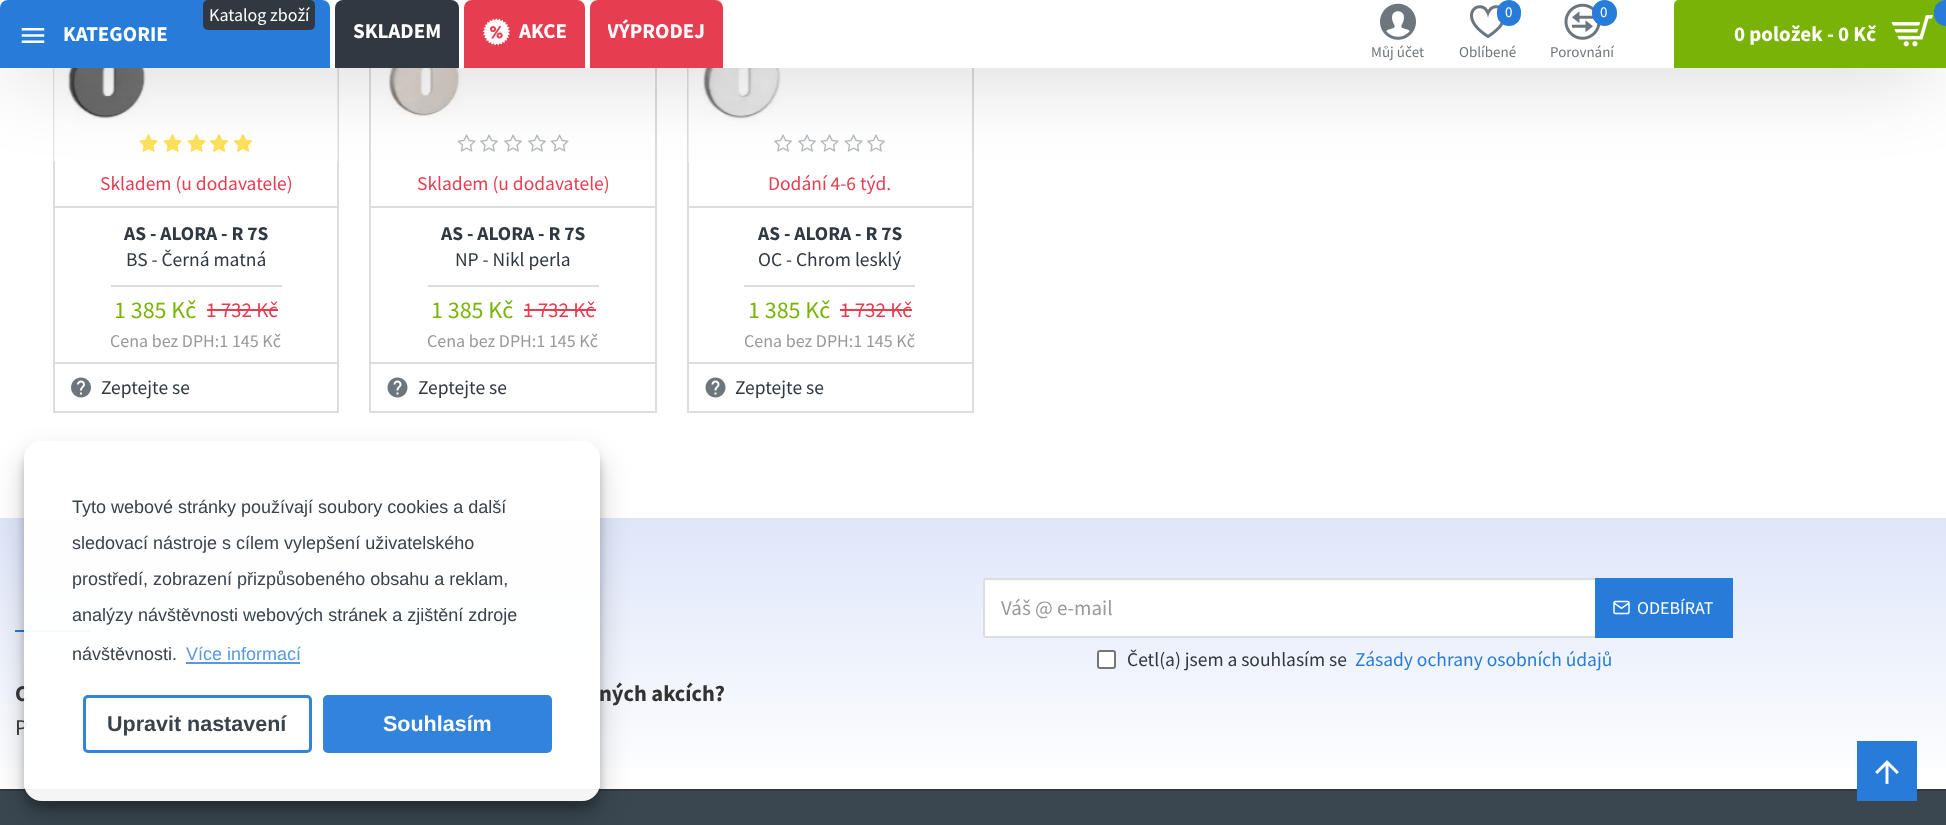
(async () => {
  const canvas = document.querySelector("canvas");
  canvas.width = 1946;
  canvas.height = 825;
  const ctx = canvas.getContext("2d");
  ctx.miterLimit = 4;
  ctx.fontKerning = "normal";
  async function loadImage(src) {
    const img = new Image();
    img.src = src;
    await img.decode();
    return img;
  }
  let gradient, path;

  ctx.fillStyle = "#ffffff";
  ctx.fillRect(0, 0, 1946, 825);
  ctx.strokeStyle = "#dddddd";
  ctx.lineWidth = 2;
  ctx.strokeRect(54, -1, 284, 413);
  ctx.drawImage(await loadImage("img/7.png"), 53, 68, 285, 94);
  ctx.drawImage(await loadImage("img/8.png"), 139, 134, 19, 18);
  ctx.drawImage(await loadImage("img/9.png"), 139, 134, 19, 18);
  ctx.drawImage(await loadImage("img/8.png"), 163, 134, 19, 18);
  ctx.drawImage(await loadImage("img/9.png"), 163, 134, 19, 18);
  ctx.drawImage(await loadImage("img/8.png"), 187, 134, 19, 18);
  ctx.drawImage(await loadImage("img/9.png"), 187, 134, 19, 18);
  ctx.drawImage(await loadImage("img/10.png"), 210, 134, 18, 18);
  ctx.drawImage(await loadImage("img/11.png"), 210, 134, 18, 18);
  ctx.drawImage(await loadImage("img/10.png"), 234, 134, 18, 18);
  ctx.drawImage(await loadImage("img/11.png"), 234, 134, 18, 18);
  ctx.strokeRect(370, -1, 286, 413);
  ctx.drawImage(await loadImage("img/13.png"), 388, 68, 74, 50);
  ctx.drawImage(await loadImage("img/14.png"), 457, 134, 19, 18);
  ctx.drawImage(await loadImage("img/15.png"), 480, 134, 18, 18);
  ctx.drawImage(await loadImage("img/15.png"), 504, 134, 18, 18);
  ctx.drawImage(await loadImage("img/15.png"), 528, 134, 18, 18);
  ctx.drawImage(await loadImage("img/14.png"), 550, 134, 19, 18);
  ctx.strokeRect(688, -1, 285, 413);
  ctx.drawImage(await loadImage("img/17.png"), 688, 68, 93, 94);
  ctx.drawImage(await loadImage("img/15.png"), 774, 134, 18, 18);
  ctx.drawImage(await loadImage("img/15.png"), 798, 134, 18, 18);
  ctx.drawImage(await loadImage("img/14.png"), 820, 134, 19, 18);
  ctx.drawImage(await loadImage("img/14.png"), 844, 134, 19, 18);
  ctx.drawImage(await loadImage("img/15.png"), 867, 134, 18, 18);
  ctx.fillStyle = "rgba(0, 0, 0, 0.3)";
  ctx.filter = "blur(45px)";
  ctx.beginPath();
  ctx.rect(15, 23, 1917, 37);
  ctx.fill();
  ctx.filter = "none";
  ctx.fillStyle = "#ffffff";
  ctx.fillRect(0, 0, 1679, 68);
  ctx.fillStyle = "#277cd9";
  ctx.beginPath();
  ctx.roundRect(0, 0, 330, 68, [8, 8, 0, 0]);
  ctx.fill();
  ctx.fillStyle = "#303841";
  ctx.beginPath();
  ctx.roundRect(203, 0, 112, 30, 5);
  ctx.fill();
  ctx.drawImage(await loadImage("img/1.png"), 21, 28, 24, 15);
  ctx.beginPath();
  ctx.roundRect(335, 0, 124, 68, [8, 8, 0, 0]);
  ctx.fill();
  ctx.fillStyle = "#e73d50";
  ctx.beginPath();
  ctx.roundRect(464, 0, 121, 68, [8, 8, 0, 0]);
  ctx.fill();
  ctx.drawImage(await loadImage("img/2.png"), 483, 18, 27, 28);
  ctx.beginPath();
  ctx.roundRect(590, 0, 133, 68, [8, 8, 0, 0]);
  ctx.fill();
  ctx.drawImage(await loadImage("img/3.png"), 1380, 3, 36, 37);
  ctx.drawImage(await loadImage("img/4.png"), 1470, 5, 34, 34);
  ctx.fillStyle = "#277cd9";
  ctx.beginPath();
  ctx.roundRect(1497, 0, 24, 26, 12);
  ctx.fill();
  ctx.drawImage(await loadImage("img/5.png"), 1564, 3, 37, 37);
  ctx.beginPath();
  ctx.roundRect(1592, 0, 25, 26, 12.5);
  ctx.fill();
  ctx.fillStyle = "#7ab307";
  path = new Path2D("M1679 0H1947V68H1674V5C1674 2 1676 0 1679 0Z");
  ctx.fill(path);
  ctx.drawImage(await loadImage("img/6.png"), 1891, 15, 43, 32);
  ctx.fillStyle = "#277cd9";
  ctx.beginPath();
  ctx.roundRect(1934, 0, 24, 26, 12);
  ctx.fill();
  for (const [x, y, w, h, color] of [
    [54, 206, 284, 2, "#dddddd"],
    [111, 285, 171, 2, "#dddddd"],
    [207, 309, 71, 2, "#e73d50"],
    [54, 362, 284, 2, "#dddddd"],
  ]) {
    ctx.fillStyle = color;
    ctx.fillRect(x, y, w, h);
  }
  ctx.drawImage(await loadImage("img/12.png"), 71, 377, 20, 21);
  for (const [x, y, w, h, color] of [
    [371, 206, 285, 2, "#dddddd"],
    [428, 285, 171, 2, "#dddddd"],
    [524, 309, 72, 2, "#e73d50"],
    [371, 362, 285, 2, "#dddddd"],
  ]) {
    ctx.fillStyle = color;
    ctx.fillRect(x, y, w, h);
  }
  ctx.drawImage(await loadImage("img/16.png"), 387, 377, 21, 21);
  for (const [x, y, w, h, color] of [
    [689, 206, 283, 2, "#dddddd"],
    [744, 285, 171, 2, "#dddddd"],
    [840, 309, 72, 2, "#e73d50"],
    [689, 362, 283, 2, "#dddddd"],
  ]) {
    ctx.fillStyle = color;
    ctx.fillRect(x, y, w, h);
  }
  ctx.drawImage(await loadImage("img/16.png"), 705, 377, 21, 21);
  ctx.fillStyle = "#3a4750";
  ctx.fillRect(0, 791, 1946, 34);
  gradient = ctx.createLinearGradient(974, 789, 974, 518);
  gradient.addColorStop(0, "#ffffff");
  gradient.addColorStop(1, "#dee6f9");
  ctx.fillStyle = gradient;
  ctx.fillRect(0, 518, 1946, 250);
  ctx.fillStyle = "#ffffff";
  ctx.beginPath();
  ctx.roundRect(984, 579, 748, 58, 2);
  ctx.fill();
  ctx.stroke();
  ctx.fillStyle = "#277cd9";
  ctx.fillRect(1595, 578, 138, 60);
  ctx.drawImage(await loadImage("img/18.png"), 1613, 600, 17, 15);
  ctx.fillStyle = "#ffffff";
  ctx.beginPath();
  ctx.roundRect(1098, 651, 17, 17, 2);
  ctx.fill();
  ctx.strokeStyle = "#767676";
  ctx.stroke();
  ctx.fillStyle = "#277cd9";
  ctx.fillRect(15, 630, 75, 2);
  ctx.fillStyle = "#303841";
  ctx.fillRect(0, 789, 1946, 2);
  ctx.save();
  path = new Path2D("M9 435H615V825H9ZM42 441H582C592 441 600 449 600 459V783C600 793 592 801 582 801H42C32 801 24 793 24 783V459C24 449 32 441 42 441Z");
  ctx.clip(path, "evenodd");
  ctx.fillStyle = "rgba(0, 0, 0, 0.22)";
  ctx.filter = "blur(4.5px)";
  ctx.beginPath();
  ctx.roundRect(24, 450, 576, 360, 18);
  ctx.fill();
  ctx.filter = "none";
  ctx.restore();
  ctx.save();
  path = new Path2D("M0 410H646V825H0ZM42 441H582C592 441 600 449 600 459V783C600 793 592 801 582 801H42C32 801 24 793 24 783V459C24 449 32 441 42 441Z");
  ctx.clip(path, "evenodd");
  ctx.fillStyle = "rgba(0, 0, 0, 0.18)";
  ctx.filter = "blur(15px)";
  ctx.beginPath();
  ctx.roundRect(24, 456, 576, 360, 18);
  ctx.fill();
  ctx.filter = "none";
  ctx.restore();
  ctx.fillStyle = "#277cd9";
  ctx.fillRect(1857, 741, 60, 60);
  ctx.drawImage(await loadImage("img/19.png"), 1875, 760, 24, 24);
  ctx.font = "18px Source Sans Pro";
  ctx.fillStyle = "#ffffff";
  ctx.fillText("Katalog zboží", 209, 21);
  ctx.font = "bold 21px Source Sans Pro";
  for (const [text, x, y] of [
    ["KATEGORIE", 63, 41],
    ["SKLADEM", 353, 38],
    ["AKCE", 519, 38],
  ]) {
    ctx.fillText(text, x, y);
  }
  ctx.save();
  ctx.beginPath();
  ctx.rect(608, 17, 97, 31);
  ctx.clip();
  ctx.fillText("VÝPRODEJ", 607, 38);
  ctx.restore();
  ctx.font = "15px Source Sans Pro";
  ctx.fillStyle = "#6d767d";
  ctx.fillText("Můj účet", 1371, 57);
  ctx.fillStyle = "#ffffff";
  ctx.fillText("0", 1505, 17);
  ctx.fillStyle = "#6d767d";
  ctx.fillText("Oblíbené", 1459, 57);
  ctx.fillStyle = "#ffffff";
  ctx.fillText("0", 1600, 17);
  ctx.fillStyle = "#6d767d";
  ctx.fillText("Porovnání", 1550, 57);
  ctx.font = "bold 21px Source Sans Pro";
  ctx.fillStyle = "#ffffff";
  ctx.fillText("0 položek - 0 Kč", 1734, 41);
  ctx.font = "19.5px Source Sans Pro";
  ctx.fillStyle = "#e73d50";
  ctx.fillText("Skladem (u dodavatele)", 100, 190);
  ctx.font = "bold 19.5px Source Sans Pro";
  ctx.fillStyle = "#303841";
  ctx.fillText("AS - ALORA - R 7S", 124, 240);
  ctx.font = "19.5px Source Sans Pro";
  ctx.fillText("BS - Černá matná", 126, 266);
  ctx.font = "24px Source Sans Pro";
  ctx.fillStyle = "#7ab307";
  ctx.fillText("1 385 Kč", 114, 318);
  ctx.font = "21px Source Sans Pro";
  ctx.fillStyle = "#e73d50";
  ctx.fillText("1 732 Kč", 206, 317);
  ctx.font = "18px Source Sans Pro";
  ctx.fillStyle = "#999999";
  ctx.fillText("Cena bez DPH:1 145 Kč", 110, 347);
  ctx.font = "19.5px Source Sans Pro";
  ctx.fillStyle = "#303841";
  ctx.fillText("Zeptejte se", 101, 394);
  ctx.fillStyle = "#e73d50";
  ctx.fillText("Skladem (u dodavatele)", 417, 190);
  ctx.font = "bold 19.5px Source Sans Pro";
  ctx.fillStyle = "#303841";
  ctx.fillText("AS - ALORA - R 7S", 441, 240);
  ctx.font = "19.5px Source Sans Pro";
  ctx.fillText("NP - Nikl perla", 455, 266);
  ctx.font = "24px Source Sans Pro";
  ctx.fillStyle = "#7ab307";
  ctx.fillText("1 385 Kč", 431, 318);
  ctx.font = "21px Source Sans Pro";
  ctx.fillStyle = "#e73d50";
  ctx.fillText("1 732 Kč", 523, 317);
  ctx.font = "18px Source Sans Pro";
  ctx.fillStyle = "#999999";
  ctx.fillText("Cena bez DPH:1 145 Kč", 427, 347);
  ctx.font = "19.5px Source Sans Pro";
  ctx.fillStyle = "#303841";
  ctx.fillText("Zeptejte se", 418, 394);
  ctx.fillStyle = "#e73d50";
  ctx.fillText("Dodání 4-6 týd.", 768, 190);
  ctx.font = "bold 19.5px Source Sans Pro";
  ctx.fillStyle = "#303841";
  ctx.fillText("AS - ALORA - R 7S", 758, 240);
  ctx.font = "19.5px Source Sans Pro";
  ctx.fillText("OC - Chrom lesklý", 758, 266);
  ctx.font = "24px Source Sans Pro";
  ctx.fillStyle = "#7ab307";
  ctx.fillText("1 385 Kč", 748, 318);
  ctx.font = "21px Source Sans Pro";
  ctx.fillStyle = "#e73d50";
  ctx.fillText("1 732 Kč", 840, 317);
  ctx.font = "18px Source Sans Pro";
  ctx.fillStyle = "#999999";
  ctx.fillText("Cena bez DPH:1 145 Kč", 744, 347);
  ctx.font = "19.5px Source Sans Pro";
  ctx.fillStyle = "#303841";
  ctx.fillText("Zeptejte se", 735, 394);
  ctx.font = "21px Source Sans Pro";
  ctx.fillStyle = "#999999";
  ctx.fillText("Váš @ e-mail", 1001, 615);
  ctx.font = "18px Source Sans Pro";
  ctx.fillStyle = "#ffffff";
  ctx.fillText("ODEBÍRAT", 1637, 614);
  ctx.font = "19.5px Source Sans Pro";
  ctx.fillStyle = "#303841";
  ctx.fillText("Četl(a) jsem a souhlasím se", 1127, 666);
  ctx.fillStyle = "#277cd9";
  ctx.fillText("Zásady ochrany osobních údajů", 1355, 666);
  ctx.font = "bold 22.5px Source Sans Pro";
  ctx.fillStyle = "#333333";
  ctx.fillText("C", 15, 701);
  ctx.fillText("ných akcích?", 599, 701);
  ctx.font = "22.5px Source Sans Pro";
  ctx.fillText("P", 15, 735);
  ctx.fillStyle = "rgba(255, 255, 255, 0.95)";
  ctx.beginPath();
  ctx.roundRect(24, 441, 576, 360, 18);
  ctx.fill();
  ctx.font = "18px Liberation Sans";
  ctx.fillStyle = "#3a424b";
  for (const [text, x, y] of [
    ["Tyto webové stránky používají soubory cookies a další", 72, 513],
    ["sledovací nástroje s cílem vylepšení uživatelského", 72, 549],
    ["prostředí, zobrazení přizpůsobeného obsahu a reklam,", 72, 585],
    ["analýzy návštěvnosti webových stránek a zjištění zdroje", 72, 621],
    ["návštěvnosti.", 72, 660],
  ]) {
    ctx.fillText(text, x, y);
  }
  ctx.fillStyle = "#5798e1";
  ctx.fillText("Více informací", 186, 660);
  ctx.fillStyle = "#5799e1";
  ctx.fillRect(186, 662, 114, 2);
  ctx.beginPath();
  ctx.roundRect(84.5, 696.5, 226, 55, 3.5);
  ctx.strokeStyle = "rgba(39, 124, 217, 0.95)";
  ctx.lineWidth = 3;
  ctx.stroke();
  ctx.font = "bold 21.5px Liberation Sans";
  ctx.fillStyle = "#3a424b";
  ctx.fillText("Upravit nastavení", 107, 731);
  ctx.fillStyle = "rgba(39, 124, 217, 0.95)";
  ctx.beginPath();
  ctx.roundRect(323, 695, 229, 58, 5);
  ctx.fill();
  ctx.fillStyle = "#ffffff";
  ctx.fillText("Souhlasím", 383, 731);
})();
